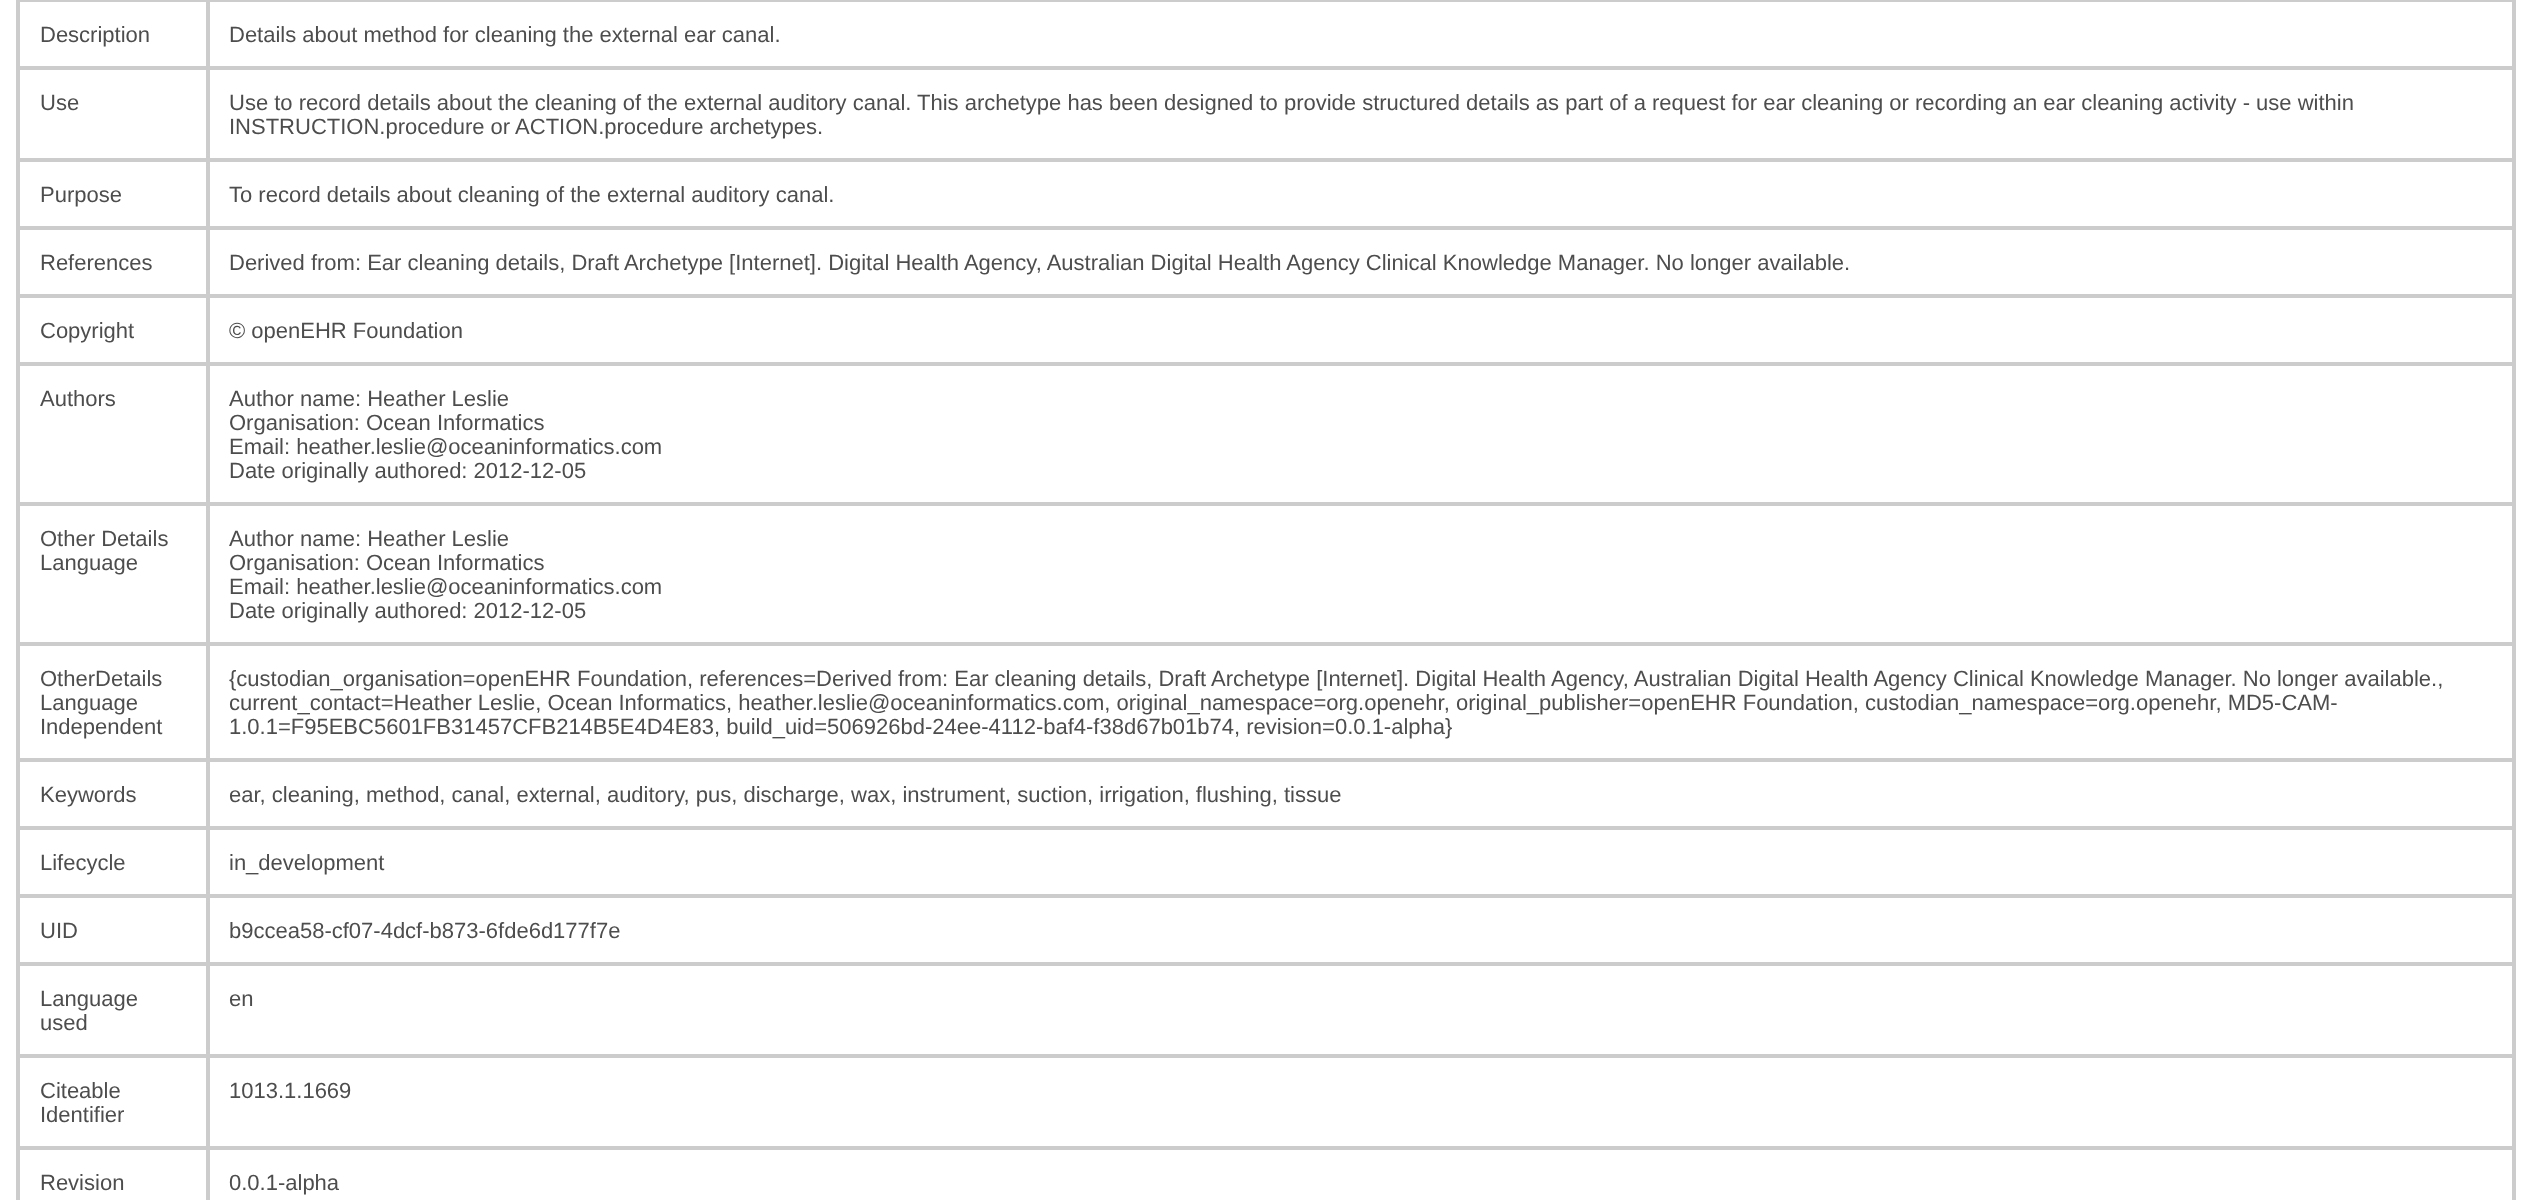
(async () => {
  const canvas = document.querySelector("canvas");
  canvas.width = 2532;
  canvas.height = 1200;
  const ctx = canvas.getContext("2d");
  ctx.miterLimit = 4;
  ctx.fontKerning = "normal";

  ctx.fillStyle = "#ffffff";
  ctx.fillRect(0, 0, 2532, 1200);
  for (const [x, y, w, h, color] of [
    [16, 0, 2500, 2, "#cccccc"],
    [206, 0, 2, 68, "#cccccc"],
    [16, 66, 192, 4, "#cccccc"],
    [16, 0, 4, 68, "#cccccc"],
    [2512, 0, 4, 68, "#cccccc"],
    [208, 66, 2308, 4, "#cccccc"],
    [208, 0, 2, 68, "#cccccc"],
    [206, 68, 2, 92, "#cccccc"],
    [16, 158, 192, 4, "#cccccc"],
    [16, 68, 4, 92, "#cccccc"],
    [2512, 68, 4, 92, "#cccccc"],
    [208, 158, 2308, 4, "#cccccc"],
    [208, 68, 2, 92, "#cccccc"],
    [206, 160, 2, 68, "#cccccc"],
    [16, 226, 192, 4, "#cccccc"],
    [16, 160, 4, 68, "#cccccc"],
    [2512, 160, 4, 68, "#cccccc"],
    [208, 226, 2308, 4, "#cccccc"],
    [208, 160, 2, 68, "#cccccc"],
    [206, 228, 2, 68, "#cccccc"],
    [16, 294, 192, 4, "#cccccc"],
    [16, 228, 4, 68, "#cccccc"],
    [2512, 228, 4, 68, "#cccccc"],
    [208, 294, 2308, 4, "#cccccc"],
    [208, 228, 2, 68, "#cccccc"],
    [206, 296, 2, 68, "#cccccc"],
    [16, 362, 192, 4, "#cccccc"],
    [16, 296, 4, 68, "#cccccc"],
    [2512, 296, 4, 68, "#cccccc"],
    [208, 362, 2308, 4, "#cccccc"],
    [208, 296, 2, 68, "#cccccc"],
    [206, 364, 2, 140, "#cccccc"],
    [16, 502, 192, 4, "#cccccc"],
    [16, 364, 4, 140, "#cccccc"],
    [2512, 364, 4, 140, "#cccccc"],
    [208, 502, 2308, 4, "#cccccc"],
    [208, 364, 2, 140, "#cccccc"],
    [206, 504, 2, 140, "#cccccc"],
    [16, 642, 192, 4, "#cccccc"],
    [16, 504, 4, 140, "#cccccc"],
    [2512, 504, 4, 140, "#cccccc"],
    [208, 642, 2308, 4, "#cccccc"],
    [208, 504, 2, 140, "#cccccc"],
    [206, 644, 2, 116, "#cccccc"],
    [16, 758, 192, 4, "#cccccc"],
    [16, 644, 4, 116, "#cccccc"],
    [2512, 644, 4, 116, "#cccccc"],
    [208, 758, 2308, 4, "#cccccc"],
    [208, 644, 2, 116, "#cccccc"],
    [206, 760, 2, 68, "#cccccc"],
    [16, 826, 192, 4, "#cccccc"],
    [16, 760, 4, 68, "#cccccc"],
    [2512, 760, 4, 68, "#cccccc"],
    [208, 826, 2308, 4, "#cccccc"],
    [208, 760, 2, 68, "#cccccc"],
    [206, 828, 2, 68, "#cccccc"],
    [16, 894, 192, 4, "#cccccc"],
    [16, 828, 4, 68, "#cccccc"],
    [2512, 828, 4, 68, "#cccccc"],
    [208, 894, 2308, 4, "#cccccc"],
    [208, 828, 2, 68, "#cccccc"],
    [206, 896, 2, 68, "#cccccc"],
    [16, 962, 192, 4, "#cccccc"],
    [16, 896, 4, 68, "#cccccc"],
    [2512, 896, 4, 68, "#cccccc"],
    [208, 962, 2308, 4, "#cccccc"],
    [208, 896, 2, 68, "#cccccc"],
    [206, 964, 2, 92, "#cccccc"],
    [16, 1054, 192, 4, "#cccccc"],
    [16, 964, 4, 92, "#cccccc"],
    [2512, 964, 4, 92, "#cccccc"],
    [208, 1054, 2308, 4, "#cccccc"],
    [208, 964, 2, 92, "#cccccc"],
    [206, 1056, 2, 92, "#cccccc"],
    [16, 1146, 192, 4, "#cccccc"],
    [16, 1056, 4, 144, "#cccccc"],
    [2512, 1056, 4, 92, "#cccccc"],
    [208, 1146, 2308, 4, "#cccccc"],
    [208, 1056, 2, 92, "#cccccc"],
    [206, 1148, 4, 52, "#cccccc"],
    [2512, 1148, 4, 52, "#cccccc"],
  ]) {
    ctx.fillStyle = color;
    ctx.fillRect(x, y, w, h);
  }
  ctx.font = "22px Liberation Sans";
  ctx.fillStyle = "#4d4d4d";
  for (const [text, x, y] of [
    ["Description", 40, 42],
    ["Details about method for cleaning the external ear canal.", 229, 42],
    ["Use", 40, 110],
    ["Use to record details about the cleaning of the external auditory canal.", 229, 110],
    ["This archetype has been designed to provide structured details as part of a request for ear cleaning or recording an ear cleaning activity - use within", 917, 110],
    ["INSTRUCTION.procedure or ACTION.procedure archetypes.", 229, 134],
    ["Purpose", 40, 202],
    ["To record details about cleaning of the external auditory canal.", 229, 202],
    ["References", 40, 270],
    ["Derived from: Ear cleaning details, Draft Archetype [Internet]. Digital Health Agency, Australian Digital Health Agency Clinical Knowledge Manager. No longer available.", 229, 270],
    ["Copyright", 40, 338],
    ["© openEHR Foundation", 229, 338],
    ["Authors", 40, 406],
    ["Author name: Heather Leslie", 229, 406],
    ["Organisation: Ocean Informatics", 229, 430],
    ["Email: heather.leslie@oceaninformatics.com", 229, 454],
    ["Date originally authored: 2012-12-05", 229, 478],
    ["Other Details", 40, 546],
    ["Language", 40, 570],
    ["Author name: Heather Leslie", 229, 546],
    ["Organisation: Ocean Informatics", 229, 570],
    ["Email: heather.leslie@oceaninformatics.com", 229, 594],
    ["Date originally authored: 2012-12-05", 229, 618],
    ["OtherDetails", 40, 686],
    ["Language", 40, 710],
    ["Independent", 40, 734],
    ["{custodian_organisation=openEHR Foundation, references=Derived from: Ear cleaning details, Draft Archetype [Internet]. Digital Health Agency, Australian Digital Health Agency Clinical Knowledge Manager. No longer available.,", 229, 686],
    ["current_contact=Heather Leslie, Ocean Informatics, heather.leslie@oceaninformatics.com, original_namespace=org.openehr, original_publisher=openEHR Foundation, custodian_namespace=org.openehr, MD5-CAM-", 229, 710],
    ["1.0.1=F95EBC5601FB31457CFB214B5E4D4E83, build_uid=506926bd-24ee-4112-baf4-f38d67b01b74, revision=0.0.1-alpha}", 229, 734],
    ["Keywords", 40, 802],
    ["ear, cleaning, method, canal, external, auditory, pus, discharge, wax, instrument, suction, irrigation, flushing, tissue", 229, 802],
    ["Lifecycle", 40, 870],
    ["in_development", 229, 870],
    ["UID", 40, 938],
    ["b9ccea58-cf07-4dcf-b873-6fde6d177f7e", 229, 938],
    ["Language", 40, 1006],
    ["used", 40, 1030],
    ["en", 229, 1006],
    ["Citeable", 40, 1098],
    ["Identifier", 40, 1122],
    ["1013.1.1669", 229, 1098],
    ["Revision", 40, 1190],
    ["0.0.1-alpha", 229, 1190],
  ]) {
    ctx.fillText(text, x, y);
  }
})();
